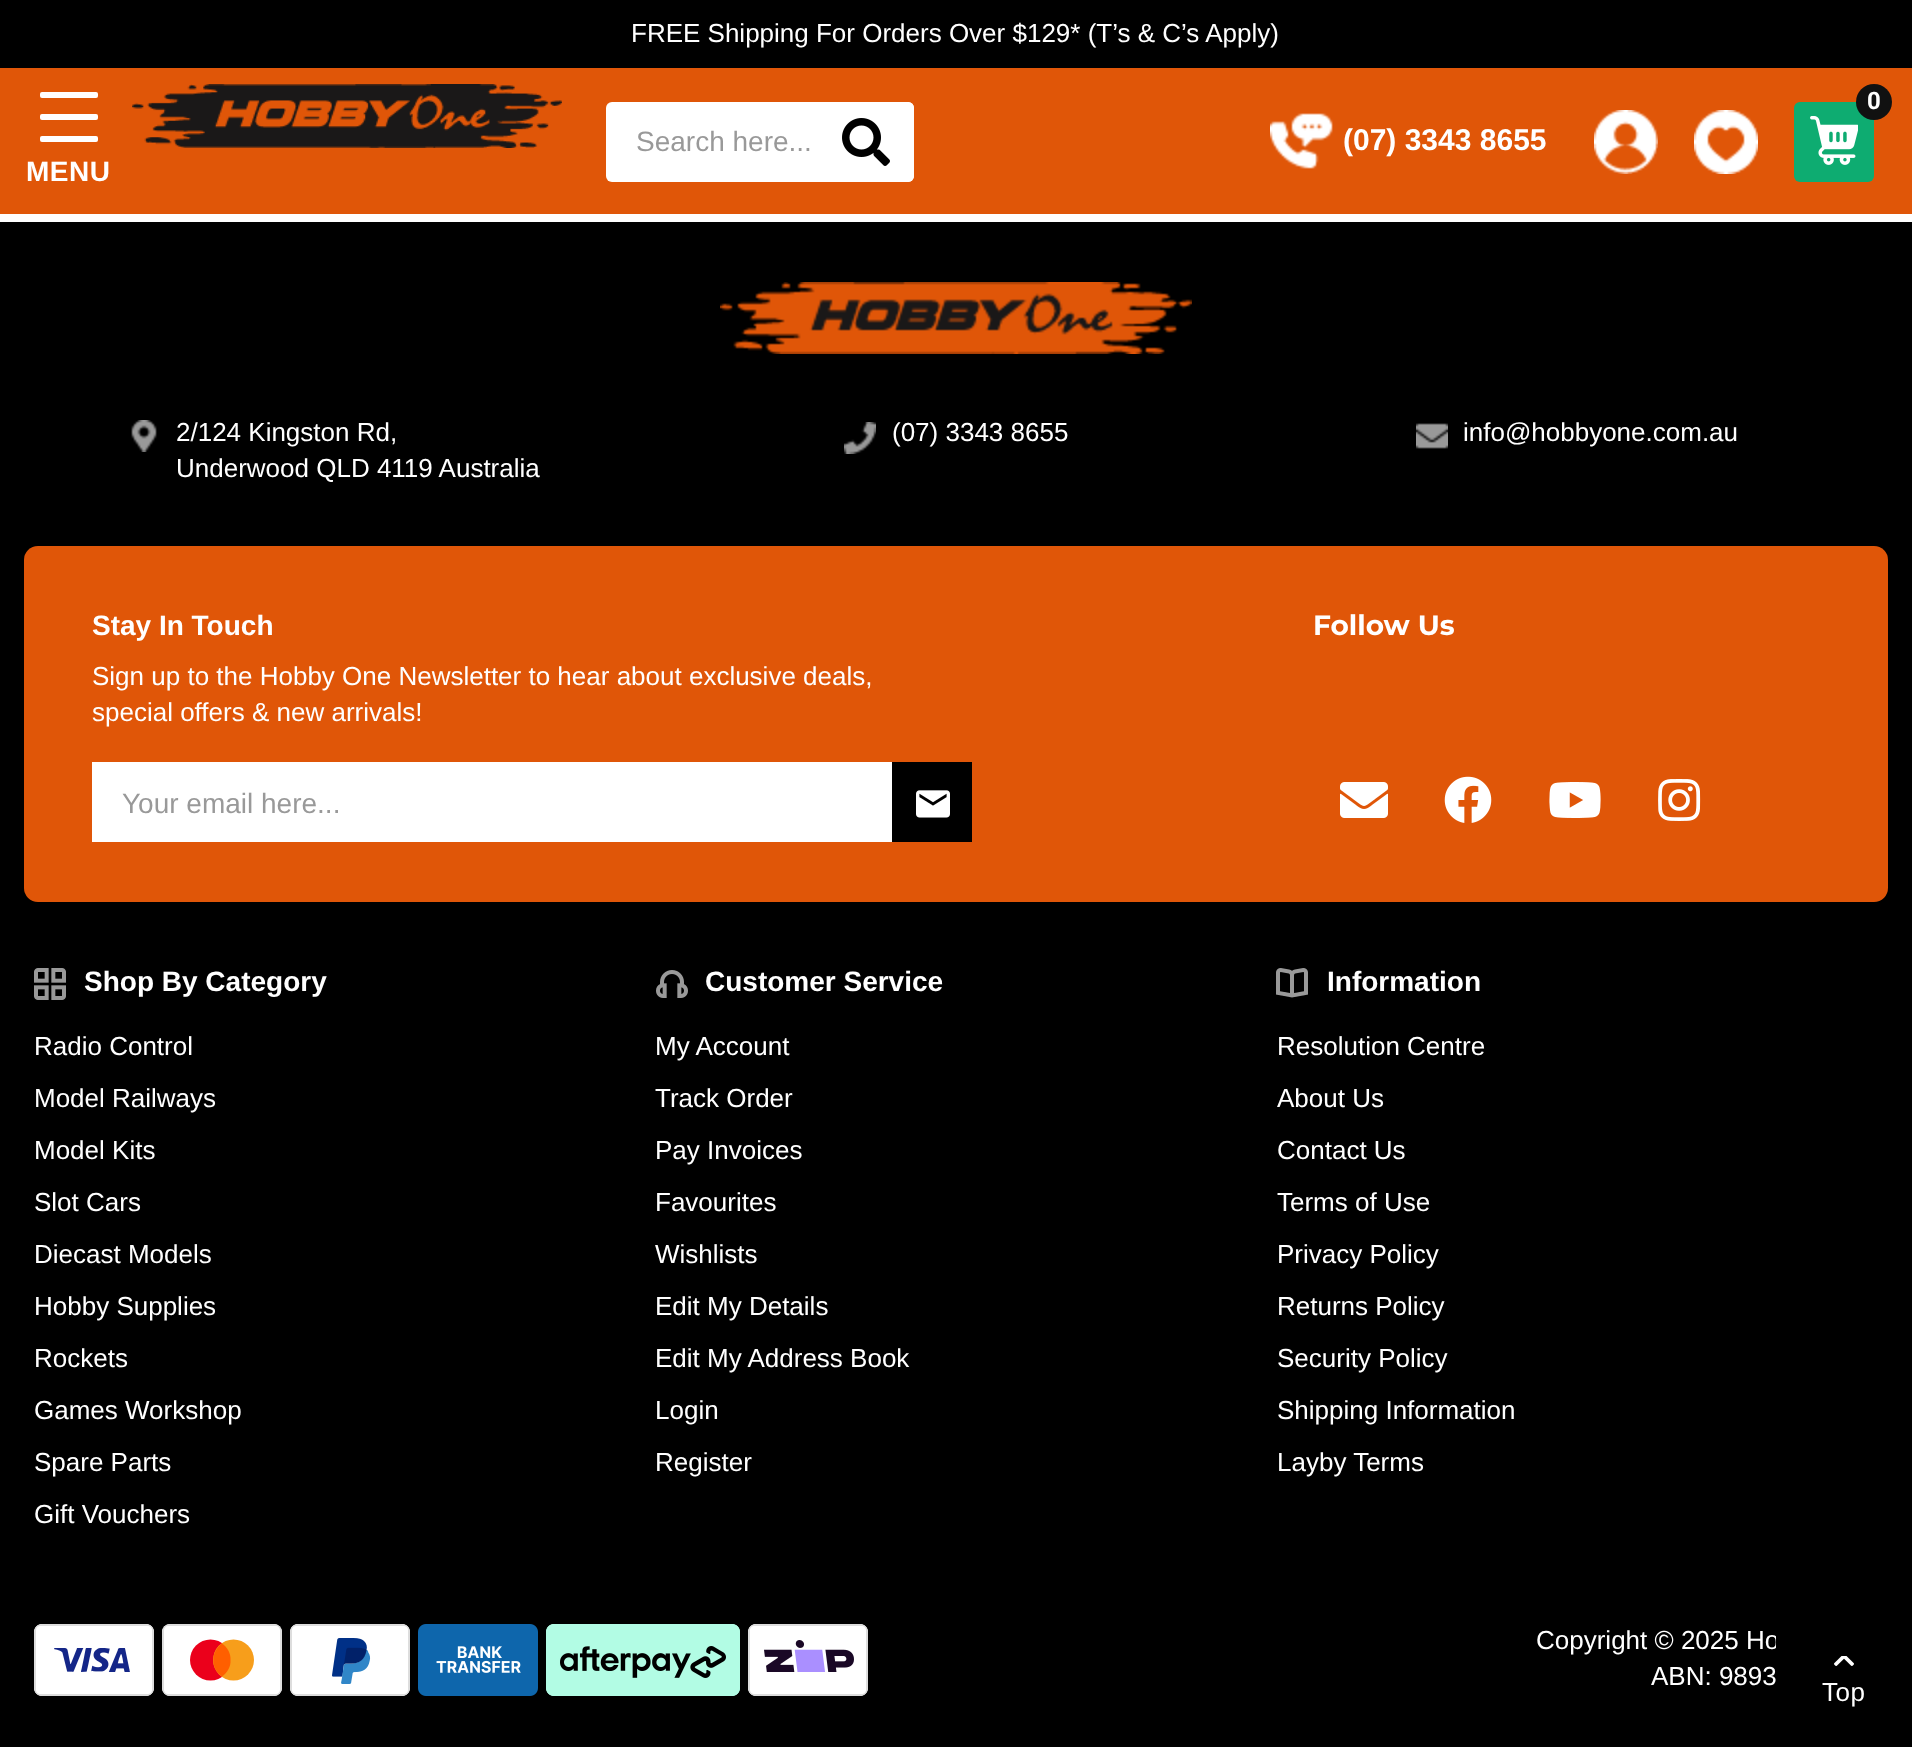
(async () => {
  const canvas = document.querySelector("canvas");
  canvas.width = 1912;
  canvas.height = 1747;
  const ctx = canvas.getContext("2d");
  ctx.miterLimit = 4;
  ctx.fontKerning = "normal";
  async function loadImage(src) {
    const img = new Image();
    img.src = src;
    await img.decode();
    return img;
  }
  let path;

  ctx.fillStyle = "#ffffff";
  ctx.fillRect(0, 0, 1912, 1747);
  ctx.fillStyle = "#000000";
  ctx.fillRect(0, 0, 1912, 68);
  ctx.fillStyle = "#e05608";
  ctx.fillRect(0, 68, 1912, 146);
  ctx.fillStyle = "#ffffff";
  ctx.beginPath();
  ctx.roundRect(606, 102, 308, 80, 6);
  ctx.fill();
  ctx.beginPath();
  ctx.roundRect(818, 102, 96, 80, [0, 6, 6, 0]);
  ctx.fill();
  ctx.drawImage(await loadImage("img/1.png"), 842, 118, 48, 48);
  ctx.fillStyle = "#0eac71";
  ctx.beginPath();
  ctx.roundRect(1794, 102, 80, 80, 6);
  ctx.fill();
  ctx.drawImage(await loadImage("img/2.png"), 1810, 116, 48, 49);
  ctx.fillStyle = "#111111";
  ctx.beginPath();
  ctx.arc(1874, 102, 18, 0, Math.PI * 2);
  ctx.fill();
  ctx.drawImage(await loadImage("img/3.png"), 1270, 113, 63, 56);
  ctx.drawImage(await loadImage("img/4.png"), 1594, 110, 64, 64);
  ctx.drawImage(await loadImage("img/5.png"), 1694, 110, 64, 64);
  ctx.drawImage(await loadImage("img/6.png"), 132, 84, 430, 64);
  ctx.fillStyle = "#ffffff";
  ctx.beginPath();
  ctx.roundRect(40, 92, 58, 6, 2);
  ctx.fill();
  ctx.beginPath();
  ctx.roundRect(40, 114, 58, 6, 2);
  ctx.fill();
  ctx.beginPath();
  ctx.roundRect(40, 136, 58, 6, 2);
  ctx.fill();
  ctx.fillStyle = "#000000";
  ctx.fillRect(0, 222, 1912, 1525);
  ctx.drawImage(await loadImage("img/7.png"), 720, 282, 472, 72);
  ctx.drawImage(await loadImage("img/8.png"), 131, 420, 26, 32);
  ctx.drawImage(await loadImage("img/9.png"), 844, 422, 32, 32);
  ctx.drawImage(await loadImage("img/10.png"), 1416, 423, 32, 26);
  ctx.fillStyle = "#e05608";
  ctx.beginPath();
  ctx.roundRect(24, 546, 1864, 356, 14);
  ctx.fill();
  ctx.fillStyle = "#ffffff";
  ctx.fillRect(92, 762, 800, 80);
  ctx.fillStyle = "#000000";
  ctx.fillRect(892, 762, 80, 80);
  ctx.drawImage(await loadImage("img/11.png"), 916, 790, 34, 28);
  ctx.drawImage(await loadImage("img/12.png"), 1340, 782, 48, 36);
  ctx.drawImage(await loadImage("img/13.png"), 1444, 776, 48, 47);
  ctx.drawImage(await loadImage("img/14.png"), 1549, 782, 52, 36);
  ctx.drawImage(await loadImage("img/15.png"), 1658, 779, 43, 42);
  ctx.drawImage(await loadImage("img/16.png"), 34, 968, 32, 32);
  ctx.drawImage(await loadImage("img/17.png"), 656, 970, 32, 28);
  ctx.drawImage(await loadImage("img/18.png"), 1276, 968, 32, 30);
  ctx.drawImage(await loadImage("img/19.png"), 34, 1624, 120, 72);
  ctx.fillStyle = "#ffffff";
  ctx.beginPath();
  ctx.roundRect(162, 1624, 120, 72, 8);
  ctx.fill();
  ctx.fillStyle = "#dddddd";
  path = new Path2D("M170 1624C166 1624 162 1628 162 1632V1688C162 1692 166 1696 170 1696H274C278 1696 282 1692 282 1688V1632C282 1628 278 1624 274 1624ZM168 1626C166 1626 164 1628 164 1630V1690C164 1692 166 1694 168 1694H276C278 1694 280 1692 280 1690V1630C280 1628 278 1626 276 1626Z");
  ctx.fill(path, "evenodd");
  ctx.fillStyle = "#eb001b";
  ctx.beginPath();
  ctx.arc(210.5, 1660, 20.5, 0, Math.PI * 2);
  ctx.fill();
  ctx.fillStyle = "#f79e1b";
  ctx.beginPath();
  ctx.arc(233.5, 1660, 20.5, 0, Math.PI * 2);
  ctx.fill();
  ctx.fillStyle = "#ff5f00";
  path = new Path2D("M230.5 1660C231 1653.5 227.5 1647.5 222 1643.5C210.5 1651.5 210.5 1668.5 222 1676.5C227.5 1672.5 231 1666.5 230.5 1660Z");
  ctx.fill(path);
  ctx.drawImage(await loadImage("img/20.png"), 290, 1624, 120, 72);
  ctx.drawImage(await loadImage("img/21.png"), 418, 1624, 120, 72);
  ctx.drawImage(await loadImage("img/22.png"), 546, 1624, 194, 72);
  ctx.drawImage(await loadImage("img/23.png"), 748, 1624, 120, 72);
  ctx.drawImage(await loadImage("img/24.png"), 1834, 1656, 20, 10);
  ctx.font = "26px Liberation Sans";
  ctx.fillStyle = "#ffffff";
  ctx.fillText("FREE Shipping For Orders Over $129* (T’s & C’s Apply)", 631, 42);
  ctx.font = "28px Liberation Sans";
  ctx.fillStyle = "#999999";
  ctx.fillText("Search here...", 636, 151);
  ctx.font = "bold 24px Roboto";
  ctx.fillStyle = "#ffffff";
  ctx.fillText("0", 1867, 109);
  ctx.font = "bold 30px Liberation Sans";
  ctx.fillText("(07) 3343 8655", 1343, 150);
  ctx.letterSpacing = "0.5px";
  ctx.font = "bold 28px Liberation Sans";
  ctx.fillText("MENU", 26, 181);
  ctx.letterSpacing = "0px";
  ctx.font = "26px Liberation Sans";
  for (const [text, x, y] of [
    ["2/124 Kingston Rd,", 176, 441],
    ["Underwood QLD 4119 Australia", 176, 477],
    ["(07) 3343 8655", 892, 441],
    ["info@hobbyone.com.au", 1463, 441],
  ]) {
    ctx.fillText(text, x, y);
  }
  ctx.font = "bold 28px Liberation Sans";
  ctx.fillText("Stay In Touch", 92, 635);
  ctx.font = "26px Liberation Sans";
  ctx.fillText("Sign up to the Hobby One Newsletter to hear about exclusive deals,", 92, 685);
  ctx.fillText("special offers & new arrivals!", 92, 721);
  ctx.font = "28px Liberation Sans";
  ctx.fillStyle = "#999999";
  ctx.fillText("Your email here...", 122, 813);
  ctx.font = "bold 28px Montserrat";
  ctx.fillStyle = "#ffffff";
  ctx.fillText("Follow Us", 1313, 635);
  ctx.font = "bold 28px Liberation Sans";
  ctx.fillText("Shop By Category", 84, 991);
  ctx.font = "26px Liberation Sans";
  for (const [text, x, y] of [
    ["Radio Control", 34, 1055],
    ["Model Railways", 34, 1107],
    ["Model Kits", 34, 1159],
    ["Slot Cars", 34, 1211],
    ["Diecast Models", 34, 1263],
    ["Hobby Supplies", 34, 1315],
    ["Rockets", 34, 1367],
    ["Games Workshop", 34, 1419],
    ["Spare Parts", 34, 1471],
    ["Gift Vouchers", 34, 1523],
  ]) {
    ctx.fillText(text, x, y);
  }
  ctx.font = "bold 28px Liberation Sans";
  ctx.fillText("Customer Service", 705, 991);
  ctx.font = "26px Liberation Sans";
  for (const [text, x, y] of [
    ["My Account", 655, 1055],
    ["Track Order", 655, 1107],
    ["Pay Invoices", 655, 1159],
    ["Favourites", 655, 1211],
    ["Wishlists", 655, 1263],
    ["Edit My Details", 655, 1315],
    ["Edit My Address Book", 655, 1367],
    ["Login", 655, 1419],
    ["Register", 655, 1471],
  ]) {
    ctx.fillText(text, x, y);
  }
  ctx.font = "bold 28px Liberation Sans";
  ctx.fillText("Information", 1327, 991);
  ctx.font = "26px Liberation Sans";
  for (const [text, x, y] of [
    ["Resolution Centre", 1277, 1055],
    ["About Us", 1277, 1107],
    ["Contact Us", 1277, 1159],
    ["Terms of Use", 1277, 1211],
    ["Privacy Policy", 1277, 1263],
    ["Returns Policy", 1277, 1315],
    ["Security Policy", 1277, 1367],
    ["Shipping Information", 1277, 1419],
    ["Layby Terms", 1277, 1471],
    ["Copyright © 2025 Ho", 1536, 1649],
    ["ABN: 9893", 1651, 1685],
  ]) {
    ctx.fillText(text, x, y);
  }
  ctx.fillStyle = "#000000";
  ctx.fillRect(1776, 1636, 3, 13);
  ctx.letterSpacing = "0.5px";
  ctx.fillStyle = "#ffffff";
  ctx.fillText("Top", 1822, 1701);
})();
